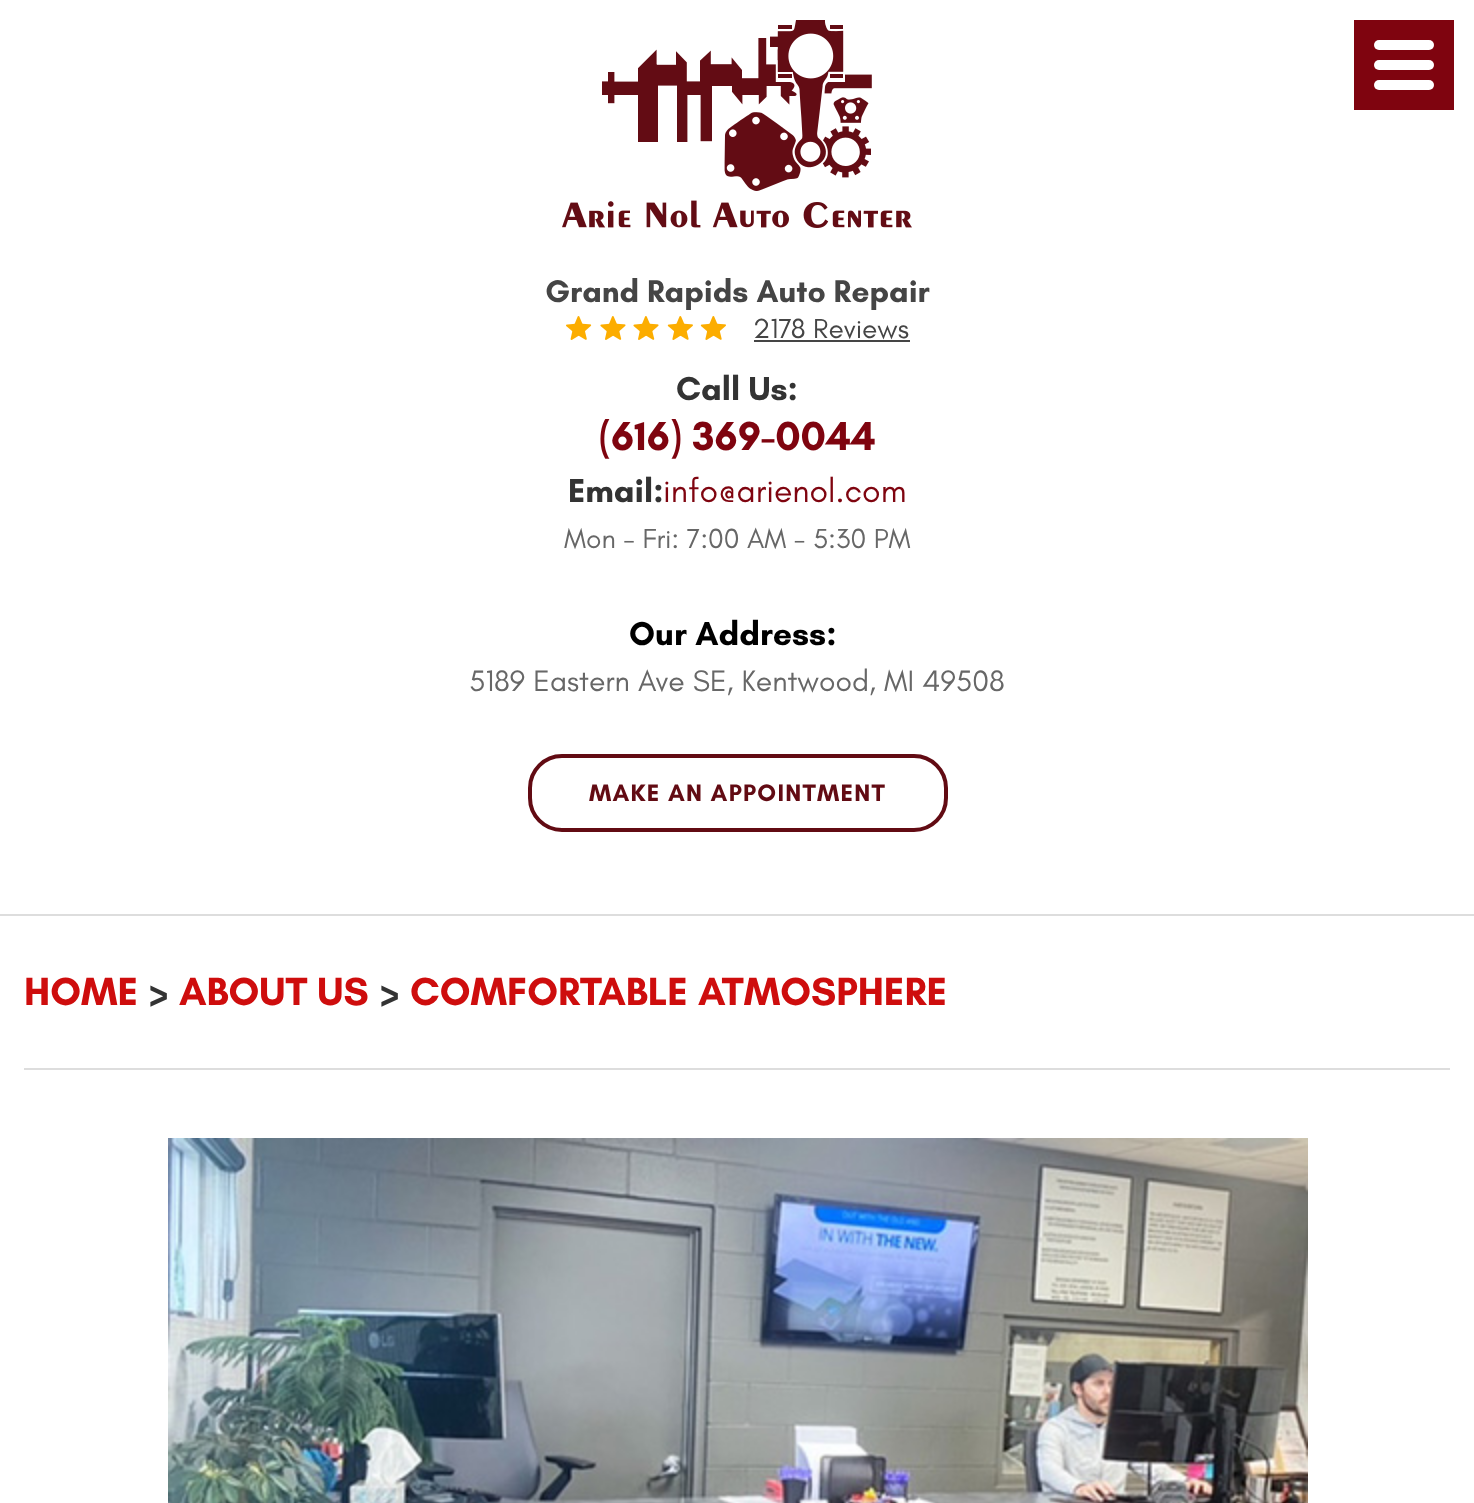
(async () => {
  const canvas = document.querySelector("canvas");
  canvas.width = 1474;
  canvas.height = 1503;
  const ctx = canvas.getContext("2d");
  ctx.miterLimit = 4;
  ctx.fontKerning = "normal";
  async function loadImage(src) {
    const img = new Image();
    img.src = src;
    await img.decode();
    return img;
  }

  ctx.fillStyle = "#ffffff";
  ctx.fillRect(0, 0, 1474, 1503);
  ctx.fillStyle = "#dddddd";
  ctx.fillRect(0, 914, 1474, 2);
  ctx.drawImage(await loadImage("img/1.png"), 562, 20, 350, 208);
  ctx.fillStyle = "#7f040f";
  ctx.fillRect(1354, 20, 100, 90);
  ctx.fillStyle = "#ffffff";
  ctx.beginPath();
  ctx.roundRect(1374, 60, 60, 10, 5);
  ctx.fill();
  ctx.beginPath();
  ctx.roundRect(1374, 40, 60, 10, 5);
  ctx.fill();
  ctx.beginPath();
  ctx.roundRect(1374, 80, 60, 10, 5);
  ctx.fill();
  ctx.drawImage(await loadImage("img/2.png"), 566, 316, 160, 24);
  ctx.fillStyle = "#454545";
  ctx.fillRect(754, 340, 156, 2);
  ctx.beginPath();
  ctx.roundRect(530, 756, 416, 74, 32);
  ctx.strokeStyle = "#620b13";
  ctx.lineWidth = 4;
  ctx.stroke();
  ctx.fillStyle = "#dddddd";
  ctx.fillRect(24, 1068, 1426, 2);
  ctx.drawImage(await loadImage("img/3.png"), 168, 1138, 1140, 365);
  ctx.font = "bold 31.9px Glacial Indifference";
  ctx.fillStyle = "#454545";
  ctx.fillText("Grand Rapids Auto Repair", 545, 302);
  ctx.font = "28.1px Glacial Indifference";
  ctx.fillText("2178 Reviews", 753, 338);
  ctx.font = "bold 33.75px Glacial Indifference";
  ctx.fillStyle = "#333333";
  ctx.fillText("Call Us:", 676, 400);
  ctx.font = "bold 41.25px Glacial Indifference";
  ctx.fillStyle = "#7f040f";
  ctx.fillText("(616) 369-0044", 599, 450);
  ctx.font = "bold 33.75px Glacial Indifference";
  ctx.fillStyle = "#333333";
  ctx.fillText("Email:", 568, 502);
  ctx.font = "33.75px Glacial Indifference";
  ctx.fillStyle = "#7f040f";
  ctx.fillText("info@arienol.com", 663, 502);
  ctx.font = "28.1px Glacial Indifference";
  ctx.fillStyle = "#676767";
  ctx.fillText("Mon - Fri: 7:00 AM - 5:30 PM", 564, 548);
  ctx.font = "bold 33.75px Glacial Indifference";
  ctx.fillStyle = "#000000";
  ctx.fillText("Our Address:", 629, 645);
  ctx.font = "30px Glacial Indifference";
  ctx.fillStyle = "#676767";
  ctx.fillText("5189 Eastern Ave SE, Kentwood, MI 49508", 469, 691);
  ctx.letterSpacing = "1.25px";
  ctx.font = "bold 24.4px Glacial Indifference";
  ctx.fillStyle = "#620b13";
  ctx.fillText("MAKE AN APPOINTMENT", 589, 801);
  ctx.letterSpacing = "0px";
  ctx.font = "bold 40px Glacial Indifference";
  ctx.fillStyle = "#ce0d0d";
  ctx.fillText("HOME", 24, 1005);
  ctx.fillStyle = "#333333";
  ctx.fillText(">", 148, 1005);
  ctx.fillStyle = "#ce0d0d";
  ctx.fillText("ABOUT US", 179, 1005);
  ctx.fillStyle = "#333333";
  ctx.fillText(">", 379, 1005);
  ctx.fillStyle = "#ce0d0d";
  ctx.fillText("COMFORTABLE ATMOSPHERE", 410, 1005);
})();
